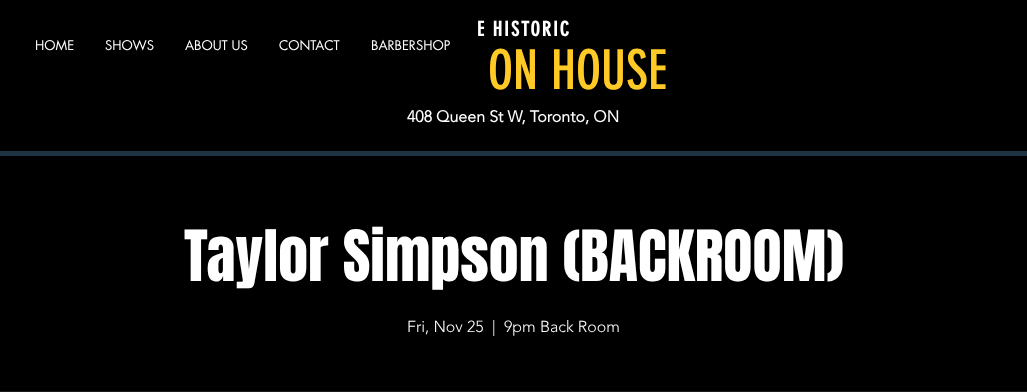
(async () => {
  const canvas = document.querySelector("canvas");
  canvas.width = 1027;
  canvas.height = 392;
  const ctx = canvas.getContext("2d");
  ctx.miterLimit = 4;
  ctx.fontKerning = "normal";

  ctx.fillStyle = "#000000";
  ctx.fillRect(0, 0, 1027, 392);
  ctx.fillStyle = "#1e3443";
  ctx.fillRect(0, 151, 1027, 5);
  ctx.fillStyle = "#1b1b1b";
  ctx.fillRect(0, 391, 1027, 1);
  ctx.font = "13px futura";
  ctx.fillStyle = "#ffffff";
  for (const [text, x, y] of [
    ["HOME", 35, 50],
    ["SHOWS", 105, 50],
    ["ABOUT US", 185, 50],
    ["CONTACT", 279, 50],
    ["BARBERSHOP", 371, 50],
  ]) {
    ctx.fillText(text, x, y);
  }
  ctx.letterSpacing = "2px";
  ctx.font = "bold 20px 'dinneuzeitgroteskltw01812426'";
  ctx.fillText("E HISTORIC", 477, 36);
  ctx.letterSpacing = "0px";
  ctx.font = "54px 'dinneuzeitgroteskltw01812426'";
  ctx.fillStyle = "#ffca25";
  ctx.fillText("ON HOUSE", 488, 89);
  ctx.font = "bold 16px 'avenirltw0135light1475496'";
  ctx.fillStyle = "#ffffff";
  ctx.fillText("408 Queen St W, Toronto, ON", 407, 122);
  ctx.font = "60px Anton";
  ctx.fillText("Taylor Simpson (BACKROOM)", 184, 281);
  ctx.font = "300 16px 'avenirltw0135light1475496'";
  for (const [text, x, y] of [
    ["Fri, Nov 25", 407, 332],
    ["|", 492, 332],
    ["9pm Back Room", 504, 332],
  ]) {
    ctx.fillText(text, x, y);
  }
})();
